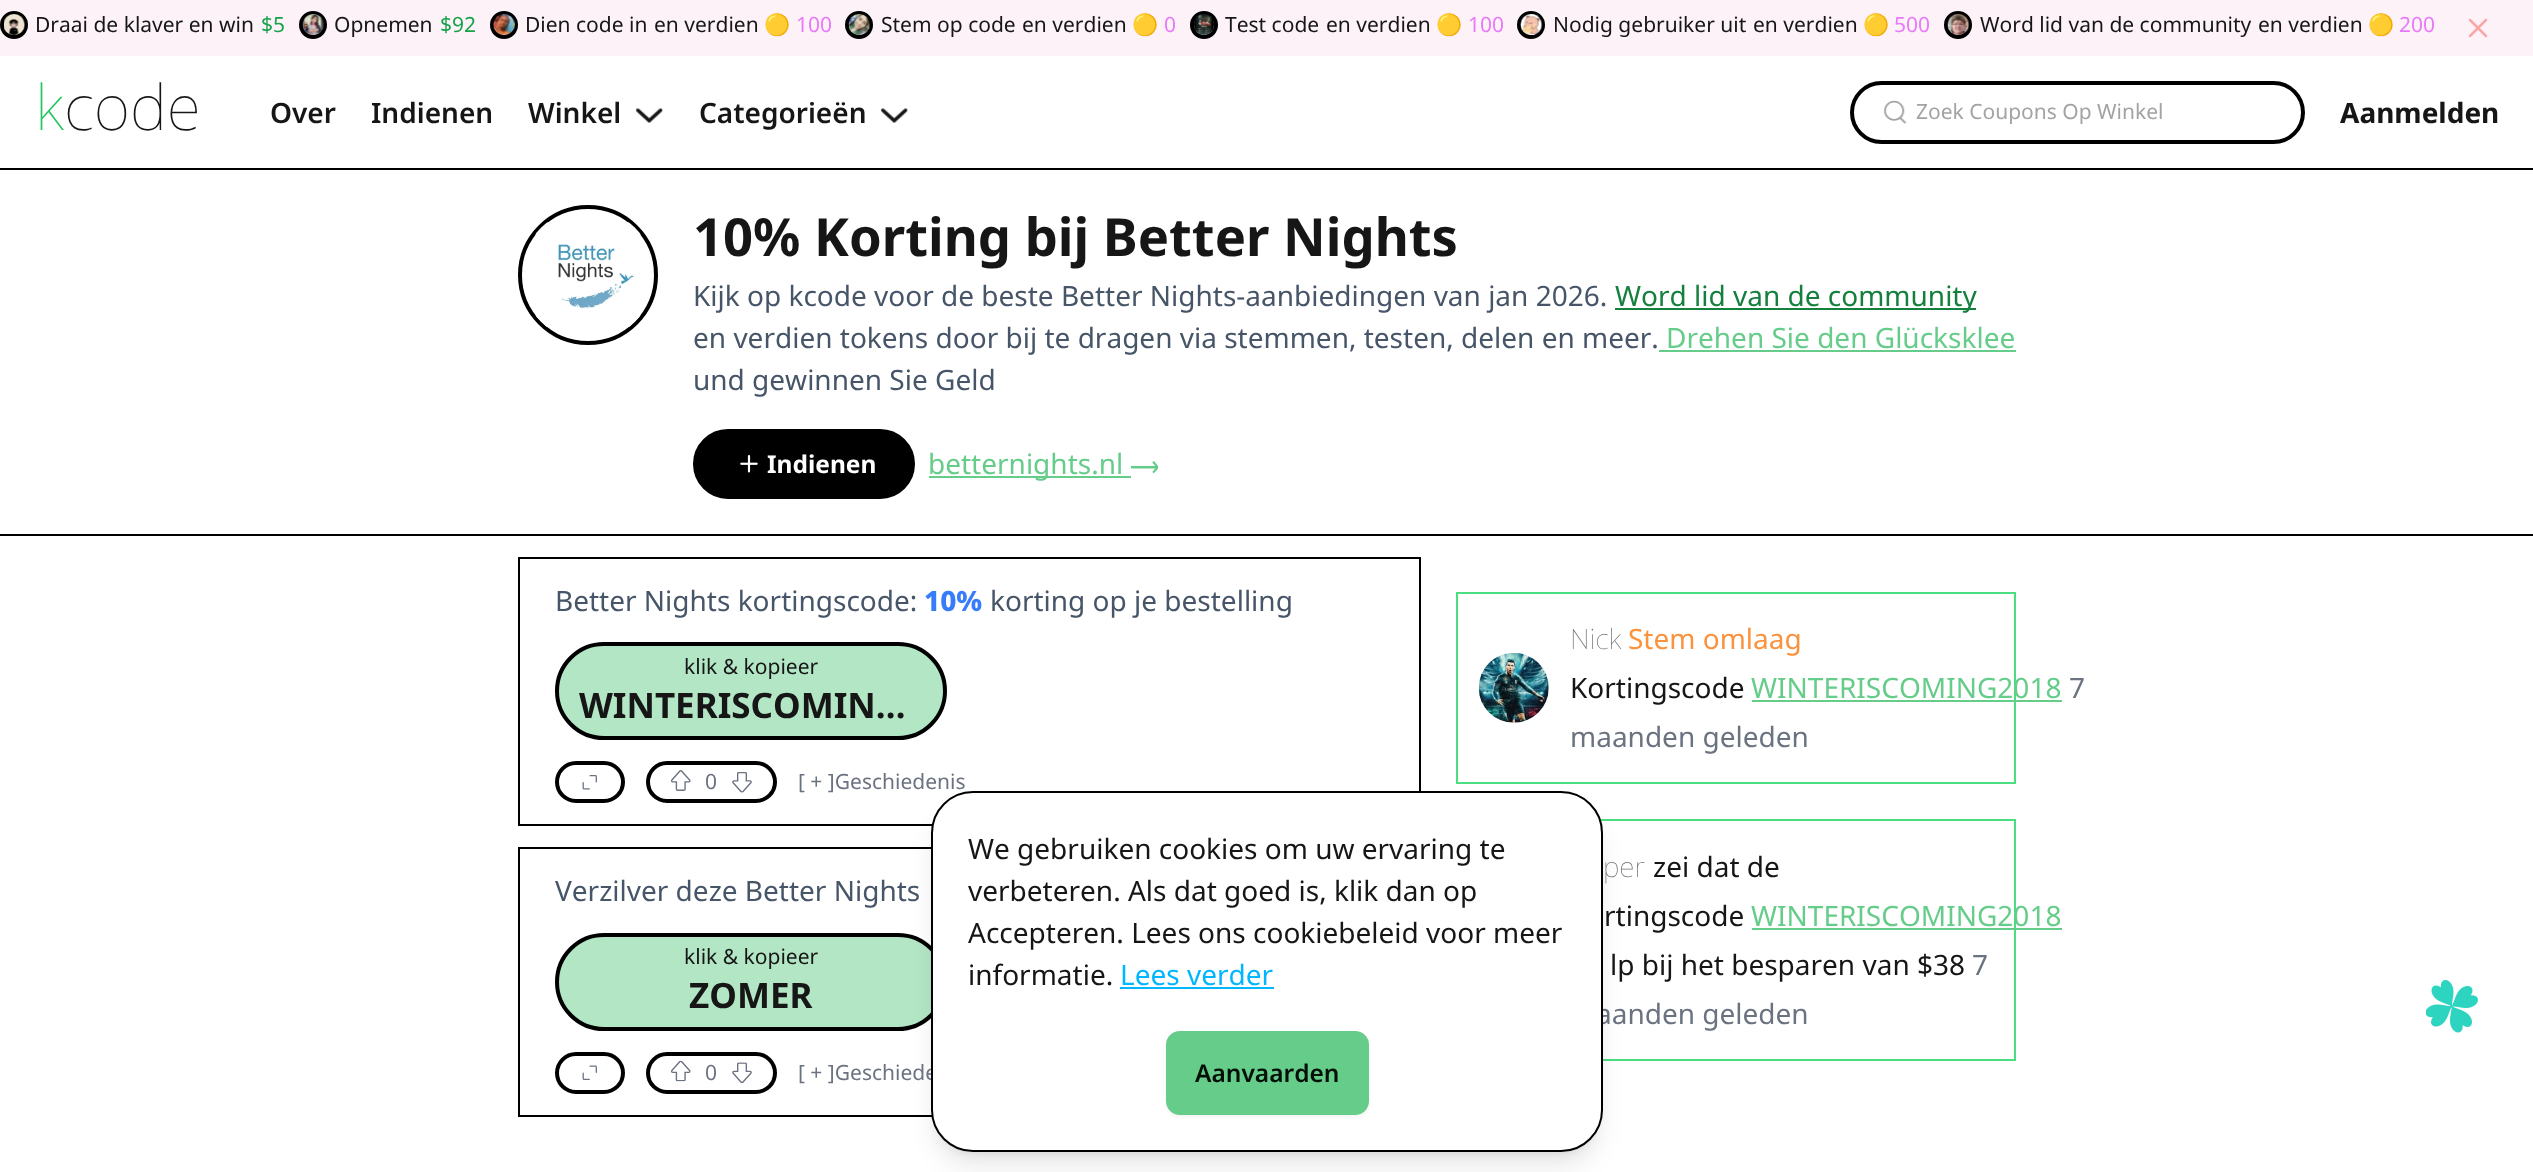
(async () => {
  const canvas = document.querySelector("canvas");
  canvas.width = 2533;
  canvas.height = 1172;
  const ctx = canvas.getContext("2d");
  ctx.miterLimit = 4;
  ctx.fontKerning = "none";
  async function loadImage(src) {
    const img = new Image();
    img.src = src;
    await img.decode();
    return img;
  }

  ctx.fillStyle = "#ffffff";
  ctx.fillRect(0, 0, 2533, 1172);
  ctx.fillStyle = "#000000";
  ctx.fillRect(0, 168, 2533, 2);
  ctx.fillStyle = "#fdf2f8";
  ctx.fillRect(0, 0, 2533, 56);
  ctx.fillStyle = "#ffffff";
  ctx.beginPath();
  ctx.arc(14, 25, 12, 0, Math.PI * 2);
  ctx.fill();
  ctx.strokeStyle = "#000000";
  ctx.lineWidth = 4;
  ctx.stroke();
  ctx.drawImage(await loadImage("img/1.png"), 4, 14, 21, 21);
  ctx.beginPath();
  ctx.arc(313, 25, 12, 0, Math.PI * 2);
  ctx.fill();
  ctx.stroke();
  ctx.drawImage(await loadImage("img/2.png"), 302, 14, 22, 21);
  ctx.beginPath();
  ctx.arc(504, 25, 12, 0, Math.PI * 2);
  ctx.fill();
  ctx.stroke();
  ctx.drawImage(await loadImage("img/3.png"), 493, 14, 22, 21);
  ctx.beginPath();
  ctx.arc(859, 25, 12, 0, Math.PI * 2);
  ctx.fill();
  ctx.stroke();
  ctx.drawImage(await loadImage("img/4.png"), 848, 14, 22, 21);
  ctx.beginPath();
  ctx.arc(1204, 25, 12, 0, Math.PI * 2);
  ctx.fill();
  ctx.stroke();
  ctx.drawImage(await loadImage("img/5.png"), 1194, 14, 20, 21);
  ctx.beginPath();
  ctx.arc(1531, 25, 12, 0, Math.PI * 2);
  ctx.fill();
  ctx.stroke();
  ctx.drawImage(await loadImage("img/6.png"), 1520, 14, 23, 21);
  ctx.beginPath();
  ctx.arc(1958, 25, 12, 0, Math.PI * 2);
  ctx.fill();
  ctx.stroke();
  ctx.drawImage(await loadImage("img/7.png"), 1947, 14, 23, 21);
  ctx.drawImage(await loadImage("img/8.png"), 2468, 18, 20, 20);
  ctx.drawImage(await loadImage("img/9.png"), 635, 108, 28, 15);
  ctx.drawImage(await loadImage("img/10.png"), 880, 108, 28, 15);
  ctx.beginPath();
  ctx.roundRect(1852, 83, 451, 59, 29.5);
  ctx.stroke();
  ctx.drawImage(await loadImage("img/11.png"), 1883, 100, 24, 24);
  ctx.fillStyle = "#000000";
  ctx.fillRect(0, 534, 2533, 2);
  ctx.beginPath();
  ctx.arc(588, 275, 68, 0, Math.PI * 2);
  ctx.stroke();
  ctx.drawImage(await loadImage("img/12.png"), 535, 222, 106, 106);
  ctx.fillStyle = "#15803d";
  ctx.fillRect(1615, 308, 361, 2);
  ctx.fillStyle = "#66cc8a";
  ctx.fillRect(1659, 350, 357, 2);
  ctx.fillStyle = "#000000";
  ctx.beginPath();
  ctx.roundRect(695, 431, 218, 66, 33);
  ctx.fill();
  ctx.stroke();
  ctx.drawImage(await loadImage("img/13.png"), 740, 455, 18, 18);
  ctx.fillStyle = "#66cc8a";
  ctx.fillRect(929, 476, 202, 2);
  ctx.drawImage(await loadImage("img/14.png"), 1130, 461, 29, 12);
  ctx.lineWidth = 2;
  ctx.strokeRect(519, 558, 901, 267);
  ctx.fillStyle = "#b3e6c5";
  ctx.beginPath();
  ctx.roundRect(557, 644, 388, 94, 47);
  ctx.fill();
  ctx.lineWidth = 4;
  ctx.stroke();
  ctx.beginPath();
  ctx.roundRect(557, 763, 66, 38, 19);
  ctx.stroke();
  ctx.drawImage(await loadImage("img/15.png"), 582, 775, 15, 15);
  ctx.beginPath();
  ctx.roundRect(648, 763, 127, 38, 19);
  ctx.stroke();
  ctx.drawImage(await loadImage("img/16.png"), 671, 770, 20, 21);
  ctx.drawImage(await loadImage("img/17.png"), 732, 772, 20, 21);
  ctx.lineWidth = 2;
  ctx.strokeRect(519, 848, 901, 268);
  ctx.beginPath();
  ctx.roundRect(557, 935, 388, 94, 47);
  ctx.fill();
  ctx.lineWidth = 4;
  ctx.stroke();
  ctx.beginPath();
  ctx.roundRect(557, 1054, 66, 38, 19);
  ctx.stroke();
  ctx.drawImage(await loadImage("img/18.png"), 582, 1065, 15, 15);
  ctx.beginPath();
  ctx.roundRect(648, 1054, 127, 38, 19);
  ctx.stroke();
  ctx.drawImage(await loadImage("img/19.png"), 671, 1060, 20, 22);
  ctx.drawImage(await loadImage("img/20.png"), 732, 1062, 20, 21);
  ctx.strokeStyle = "#4ade80";
  ctx.lineWidth = 2;
  ctx.strokeRect(1457, 593, 558, 190);
  ctx.drawImage(await loadImage("img/21.png"), 1478, 652, 71, 71);
  ctx.fillStyle = "#66cc8a";
  ctx.fillRect(1752, 700, 310, 2);
  ctx.strokeRect(1457, 820, 558, 240);
  ctx.fillRect(1752, 928, 310, 2);
  ctx.fillStyle = "rgba(0, 0, 0, 0.1)";
  ctx.filter = "blur(5px)";
  ctx.beginPath();
  ctx.roundRect(938, 805, 658, 347, 35);
  ctx.fill();
  ctx.filter = "none";
  ctx.filter = "blur(13px)";
  ctx.beginPath();
  ctx.roundRect(936, 814, 662, 350, 37);
  ctx.fill();
  ctx.filter = "none";
  ctx.drawImage(await loadImage("img/22.png"), 2426, 980, 52, 53);
  ctx.font = "21px Noto Sans";
  ctx.fillStyle = "#161616";
  ctx.fillText("Draai de klaver en win", 35, 32);
  ctx.fillStyle = "#16a34a";
  ctx.fillText("$5", 261, 32);
  ctx.fillStyle = "#161616";
  ctx.fillText("Opnemen", 334, 32);
  ctx.fillStyle = "#16a34a";
  ctx.fillText("$92", 440, 32);
  ctx.fillStyle = "#161616";
  ctx.fillText("Dien code in", 525, 32);
  ctx.fillText("en verdien", 654, 32);
  ctx.font = "21px Noto Color Emoji";
  ctx.fillStyle = "#e879f9";
  ctx.fillText("🟡", 764, 32);
  ctx.font = "21px Noto Sans";
  ctx.fillText("100", 796, 32);
  ctx.fillStyle = "#161616";
  ctx.fillText("Stem op code", 881, 32);
  ctx.fillText("en verdien", 1022, 32);
  ctx.font = "21px Noto Color Emoji";
  ctx.fillStyle = "#e879f9";
  ctx.fillText("🟡", 1132, 32);
  ctx.font = "21px Noto Sans";
  ctx.fillText("0", 1164, 32);
  ctx.fillStyle = "#161616";
  ctx.fillText("Test code", 1225, 32);
  ctx.fillText("en verdien", 1326, 32);
  ctx.font = "21px Noto Color Emoji";
  ctx.fillStyle = "#e879f9";
  ctx.fillText("🟡", 1436, 32);
  ctx.font = "21px Noto Sans";
  ctx.fillText("100", 1468, 32);
  ctx.fillStyle = "#161616";
  ctx.fillText("Nodig gebruiker uit", 1553, 32);
  ctx.fillText("en verdien", 1753, 32);
  ctx.font = "21px Noto Color Emoji";
  ctx.fillStyle = "#e879f9";
  ctx.fillText("🟡", 1863, 32);
  ctx.font = "21px Noto Sans";
  ctx.fillText("500", 1894, 32);
  ctx.fillStyle = "#161616";
  ctx.fillText("Word lid van de community", 1980, 32);
  ctx.fillText("en verdien", 2258, 32);
  ctx.font = "21px Noto Color Emoji";
  ctx.fillStyle = "#e879f9";
  ctx.fillText("🟡", 2368, 32);
  ctx.font = "21px Noto Sans";
  ctx.fillText("200", 2399, 32);
  ctx.font = "100 63px Noto Sans";
  ctx.fillStyle = "#22c55e";
  ctx.fillText("k", 35, 130);
  ctx.fillStyle = "#161616";
  ctx.fillText("code", 64, 130);
  ctx.font = "600 28px Noto Sans";
  for (const [text, x, y] of [
    ["Over", 270, 123],
    ["Indienen", 371, 123],
    ["Winkel", 528, 123],
    ["Categorieën", 699, 123],
  ]) {
    ctx.fillText(text, x, y);
  }
  ctx.font = "21px Noto Sans";
  ctx.fillStyle = "#a3a3a3";
  ctx.fillText("Zoek Coupons Op Winkel", 1916, 119);
  ctx.font = "bold 28px Noto Sans";
  ctx.fillStyle = "#161616";
  ctx.fillText("Aanmelden", 2340, 123);
  ctx.font = "bold 52.5px Noto Sans";
  ctx.fillText("10% Korting bij Better Nights", 693, 256);
  ctx.font = "28px Noto Sans";
  ctx.fillStyle = "#475569";
  ctx.fillText("Kijk op kcode voor de beste Better Nights-aanbiedingen van jan 2026.", 693, 306);
  ctx.fillStyle = "#15803d";
  ctx.fillText("Word lid van de community", 1615, 306);
  ctx.fillStyle = "#475569";
  ctx.fillText("en verdien tokens door bij te dragen via stemmen, testen, delen en meer.", 693, 348);
  ctx.fillStyle = "#66cc8a";
  ctx.fillText("Drehen Sie den Glücksklee", 1666, 348);
  ctx.fillStyle = "#475569";
  ctx.fillText("und gewinnen Sie Geld", 693, 390);
  ctx.font = "bold 24.5px Noto Sans";
  ctx.fillStyle = "#ffffff";
  ctx.fillText("Indienen", 767, 473);
  ctx.font = "28px Noto Sans";
  ctx.fillStyle = "#66cc8a";
  ctx.fillText("betternights.nl", 928, 474);
  ctx.fillStyle = "#475569";
  ctx.fillText("Better Nights kortingscode:", 555, 611);
  ctx.font = "800 28px Noto Sans";
  ctx.fillStyle = "#377cfb";
  ctx.fillText("10%", 924, 611);
  ctx.font = "28px Noto Sans";
  ctx.fillStyle = "#475569";
  ctx.fillText("korting op je bestelling", 990, 611);
  ctx.font = "21px Noto Sans";
  ctx.fillStyle = "#161616";
  ctx.fillText("klik & kopieer", 684, 674);
  ctx.font = "bold 35px Noto Sans";
  ctx.fillText("WINTERISCOMIN…", 579, 718);
  ctx.font = "21px Noto Sans";
  ctx.fillStyle = "#6b7280";
  ctx.fillText("0", 705, 789);
  ctx.fillText("[ + ]Geschiedenis", 798, 789);
  ctx.font = "28px Noto Sans";
  ctx.fillStyle = "#475569";
  ctx.fillText("Verzilver deze Better Nights", 555, 901);
  ctx.font = "21px Noto Sans";
  ctx.fillStyle = "#161616";
  ctx.fillText("klik & kopieer", 684, 964);
  ctx.font = "bold 35px Noto Sans";
  ctx.fillText("ZOMER", 689, 1008);
  ctx.font = "21px Noto Sans";
  ctx.fillStyle = "#6b7280";
  ctx.fillText("0", 705, 1080);
  ctx.fillText("[ + ]Geschiede", 798, 1080);
  ctx.font = "100 28px Noto Sans";
  ctx.fillStyle = "#737373";
  ctx.fillText("Nick", 1570, 649);
  ctx.font = "28px Noto Sans";
  ctx.fillStyle = "#fb923c";
  ctx.fillText("Stem omlaag", 1628, 649);
  ctx.fillStyle = "#161616";
  ctx.fillText("Kortingscode", 1570, 698);
  ctx.fillStyle = "#66cc8a";
  ctx.fillText("WINTERISCOMING2018", 1751, 698);
  ctx.fillStyle = "#6b7280";
  ctx.fillText("7", 2069, 698);
  ctx.fillText("maanden geleden", 1570, 747);
  ctx.font = "100 28px Noto Sans";
  ctx.fillStyle = "#737373";
  ctx.fillText("per", 1603, 877);
  ctx.font = "28px Noto Sans";
  ctx.fillStyle = "#161616";
  ctx.fillText("zei dat de", 1653, 877);
  ctx.fillText("rtingscode", 1604, 926);
  ctx.fillStyle = "#66cc8a";
  ctx.fillText("WINTERISCOMING2018", 1751, 926);
  ctx.fillStyle = "#161616";
  ctx.fillText("lp bij het besparen van $38", 1610, 975);
  ctx.fillStyle = "#6b7280";
  ctx.fillText("7", 1972, 975);
  ctx.fillText("aanden geleden", 1596, 1024);
  ctx.fillStyle = "#ffffff";
  ctx.beginPath();
  ctx.roundRect(932, 792, 670, 359, 41);
  ctx.fill();
  ctx.strokeStyle = "#000000";
  ctx.stroke();
  ctx.fillStyle = "#161616";
  for (const [text, x, y] of [
    ["We gebruiken cookies om uw ervaring te", 968, 859],
    ["verbeteren. Als dat goed is, klik dan op", 968, 901],
    ["Accepteren. Lees ons cookiebeleid voor meer", 968, 943],
    ["informatie.", 968, 985],
  ]) {
    ctx.fillText(text, x, y);
  }
  ctx.fillStyle = "#00b6ff";
  ctx.fillText("Lees verder", 1120, 985);
  ctx.fillRect(1120, 987, 154, 2);
  ctx.fillStyle = "rgba(0, 0, 0, 0.05)";
  ctx.filter = "blur(2px)";
  ctx.beginPath();
  ctx.roundRect(1166, 1033, 203, 84, 14);
  ctx.fill();
  ctx.filter = "none";
  ctx.fillStyle = "#66cc8a";
  ctx.beginPath();
  ctx.roundRect(1167, 1032, 201, 82, 13);
  ctx.fill();
  ctx.strokeStyle = "#66cc8a";
  ctx.stroke();
  ctx.font = "600 24.5px Noto Sans";
  ctx.fillStyle = "#030f07";
  ctx.fillText("Aanvaarden", 1195, 1082);
})();
